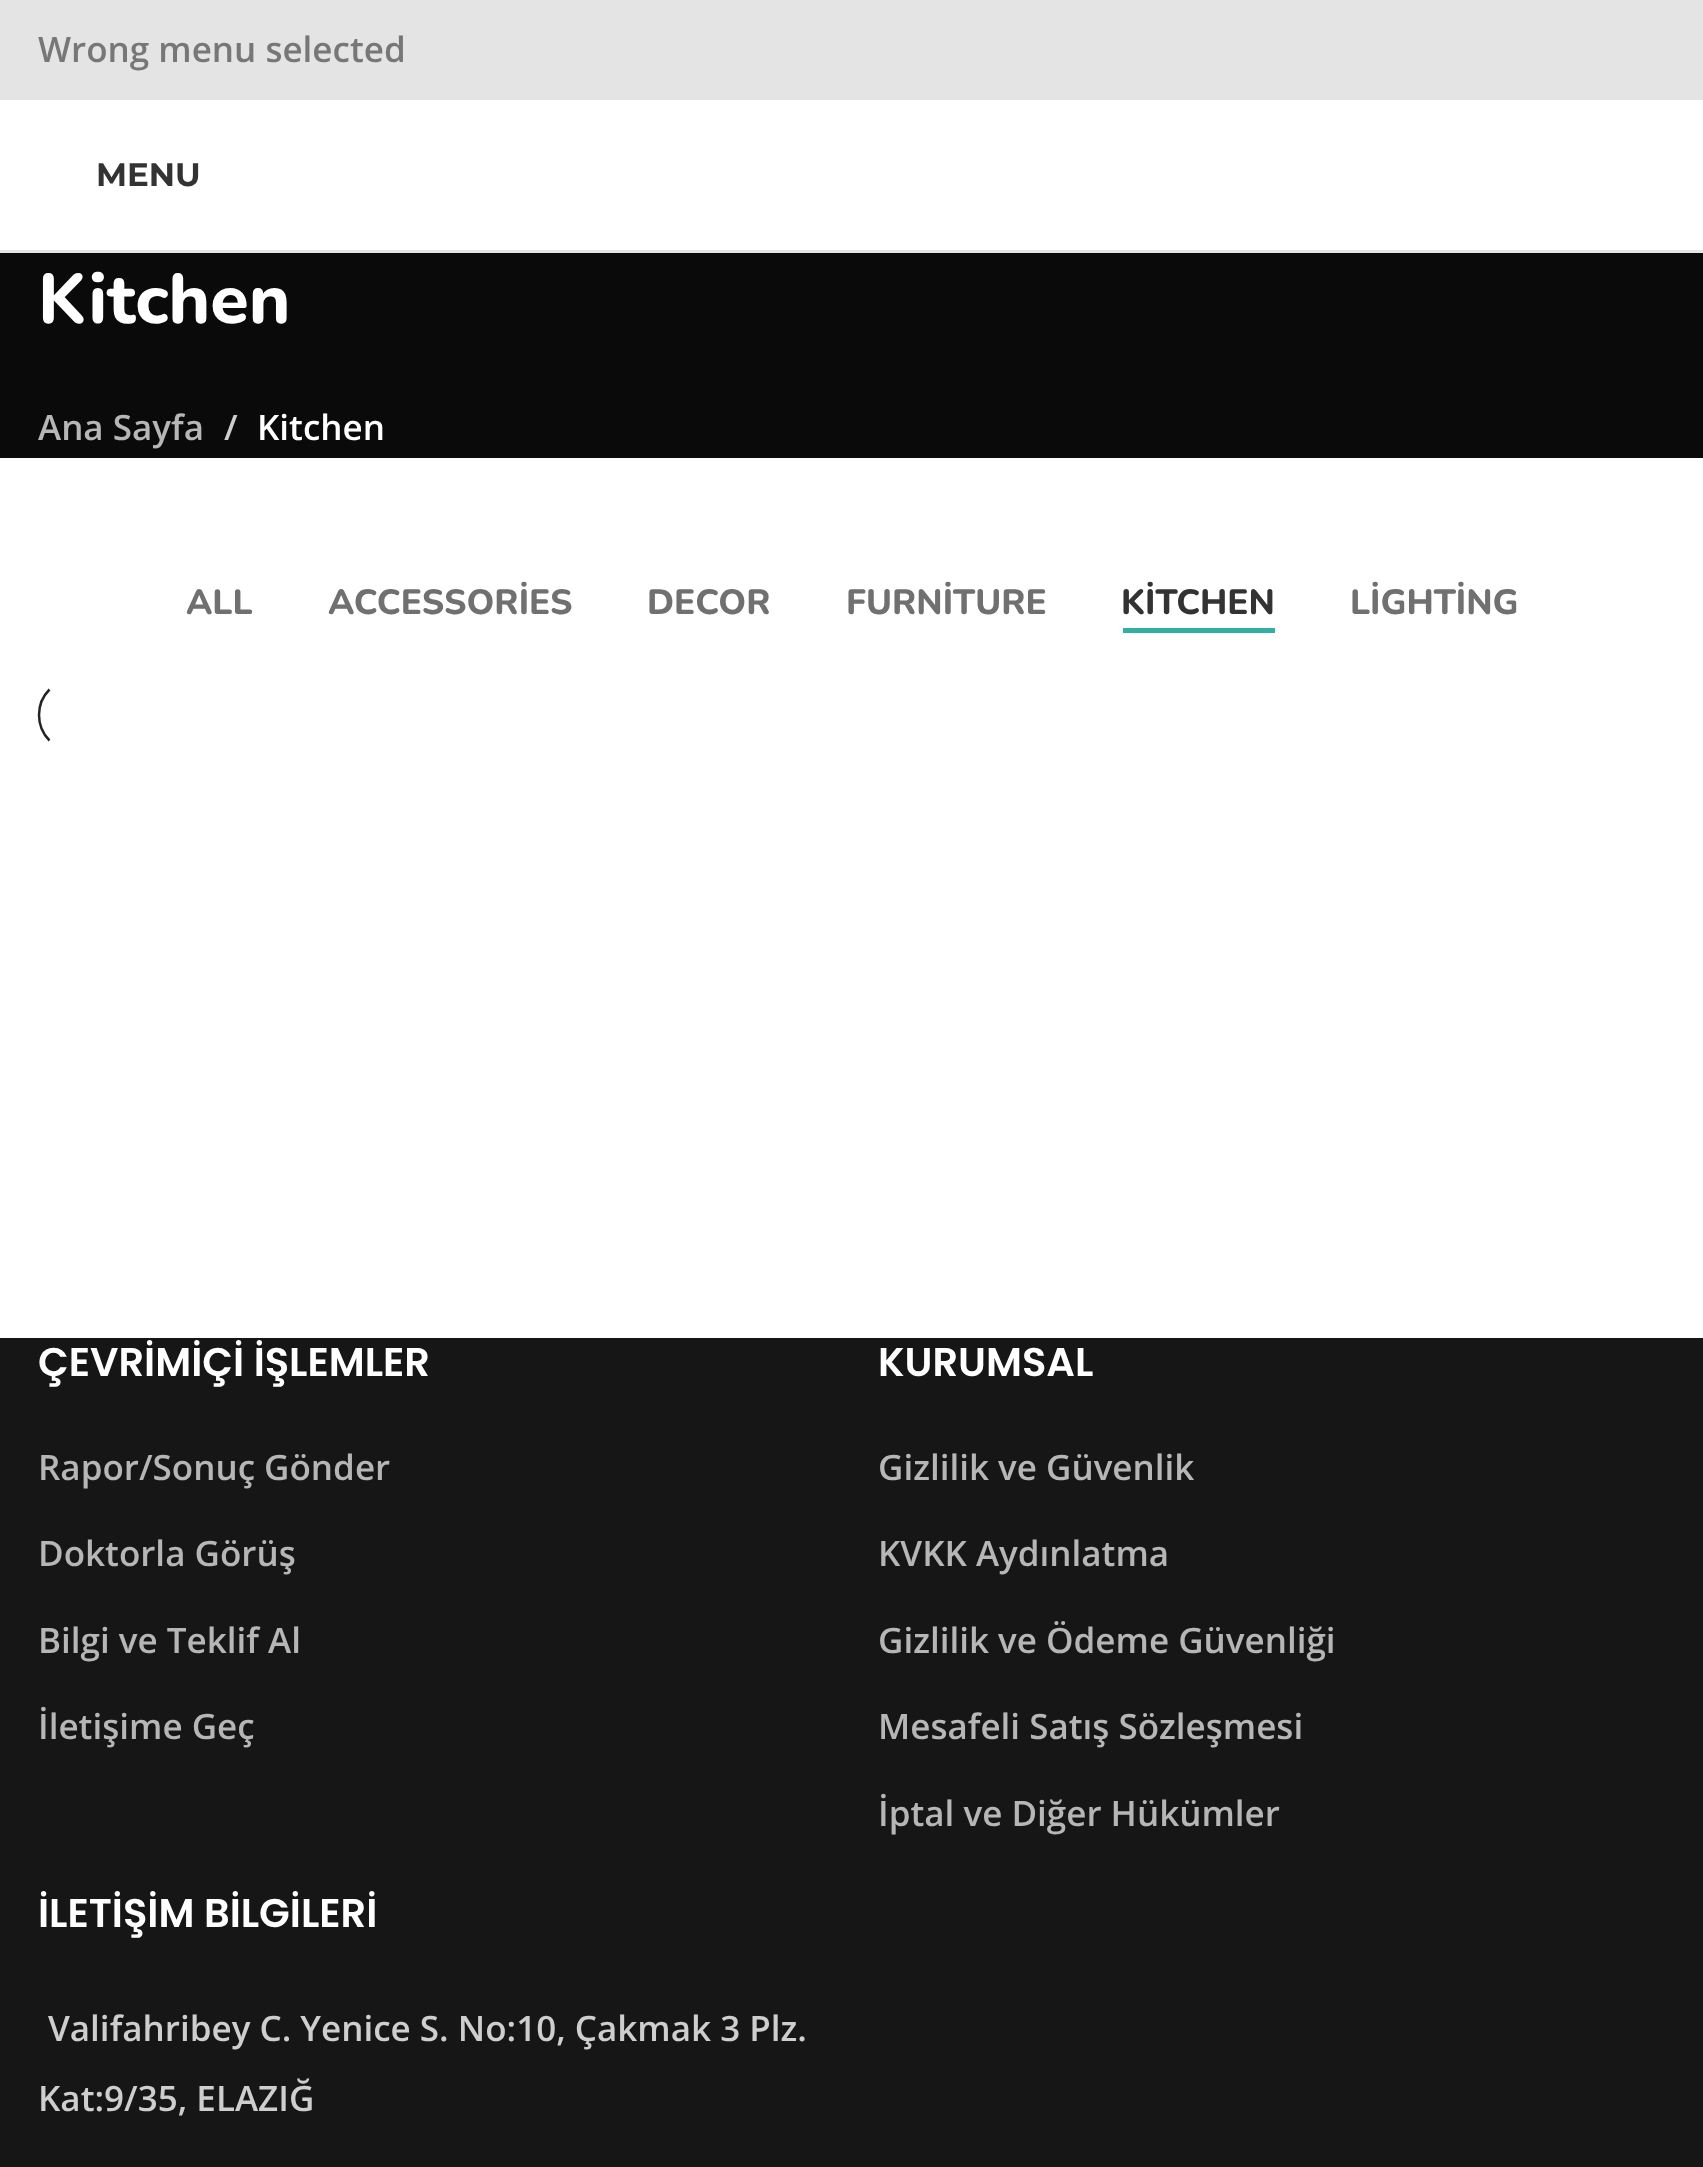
(async () => {
  const canvas = document.querySelector("canvas");
  canvas.width = 1703;
  canvas.height = 2167;
  const ctx = canvas.getContext("2d");
  ctx.miterLimit = 4;
  ctx.fontKerning = "normal";
  let path;

  ctx.fillStyle = "#ffffff";
  ctx.fillRect(0, 0, 1703, 2167);
  for (const [x, y, w, h, color] of [
    [0, 0, 1703, 100, "#e4e4e4"],
    [0, 250, 1703, 3, "#e6e6e6"],
    [0, 253, 1703, 205, "#0a0a0a"],
    [1123, 628, 152, 5, "#32afa3"],
  ]) {
    ctx.fillStyle = color;
    ctx.fillRect(x, y, w, h);
  }
  path = new Path2D("M49.5 740.5C35.5 726.5 35.5 703.5 49.5 689.5");
  ctx.strokeStyle = "#242424";
  ctx.lineWidth = 2.5;
  ctx.stroke(path);
  ctx.fillStyle = "#161616";
  ctx.fillRect(0, 1338, 1703, 829);
  ctx.font = "600 35px Open Sans";
  ctx.fillStyle = "#777777";
  ctx.fillText("Wrong menu selected", 38, 62);
  ctx.font = "bold 32.5px Montserrat";
  ctx.fillStyle = "#333333";
  ctx.fillText("MENU", 96, 186);
  ctx.font = "800 70px Nunito";
  ctx.fillStyle = "#ffffff";
  ctx.fillText("Kitchen", 38, 323);
  ctx.font = "600 35px Open Sans";
  ctx.fillStyle = "#b6b6b6";
  ctx.fillText("Ana Sayfa", 38, 440);
  ctx.fillStyle = "#cecece";
  ctx.fillText("/", 224, 440);
  ctx.fillStyle = "#ffffff";
  ctx.fillText("Kitchen", 257, 440);
  ctx.font = "800 35px Nunito";
  ctx.fillStyle = "#707070";
  for (const [text, x, y] of [
    ["ALL", 186, 614],
    ["ACCESSORİES", 328, 614],
    ["DECOR", 647, 614],
    ["FURNİTURE", 846, 614],
  ]) {
    ctx.fillText(text, x, y);
  }
  ctx.fillStyle = "#333333";
  ctx.fillText("KİTCHEN", 1121, 614);
  ctx.fillStyle = "#707070";
  ctx.fillText("LİGHTİNG", 1350, 614);
  ctx.font = "600 40px Poppins";
  ctx.fillStyle = "#ffffff";
  ctx.fillText("ÇEVRİMİÇİ İŞLEMLER", 38, 1376);
  ctx.font = "600 35px Open Sans";
  ctx.fillStyle = "#b6b6b6";
  for (const [text, x, y] of [
    ["Rapor/Sonuç Gönder", 38, 1480],
    ["Doktorla Görüş", 38, 1566],
    ["Bilgi ve Teklif Al", 38, 1653],
    ["İletişime Geç", 38, 1739],
  ]) {
    ctx.fillText(text, x, y);
  }
  ctx.font = "600 40px Poppins";
  ctx.fillStyle = "#ffffff";
  ctx.fillText("KURUMSAL", 878, 1376);
  ctx.font = "600 35px Open Sans";
  ctx.fillStyle = "#b6b6b6";
  for (const [text, x, y] of [
    ["Gizlilik ve Güvenlik", 878, 1480],
    ["KVKK Aydınlatma", 878, 1566],
    ["Gizlilik ve Ödeme Güvenliği", 878, 1653],
    ["Mesafeli Satış Sözleşmesi", 878, 1739],
    ["İptal ve Diğer Hükümler", 878, 1826],
  ]) {
    ctx.fillText(text, x, y);
  }
  ctx.font = "600 40px Poppins";
  ctx.fillStyle = "#ffffff";
  ctx.fillText("İLETİŞİM BİLGİLERİ", 38, 1927);
  ctx.font = "600 35px Open Sans";
  ctx.fillStyle = "#cecece";
  ctx.fillText("Valifahribey C. Yenice S. No:10, Çakmak 3 Plz.", 48, 2041);
  ctx.fillText("Kat:9/35, ELAZIĞ", 38, 2111);
})();
